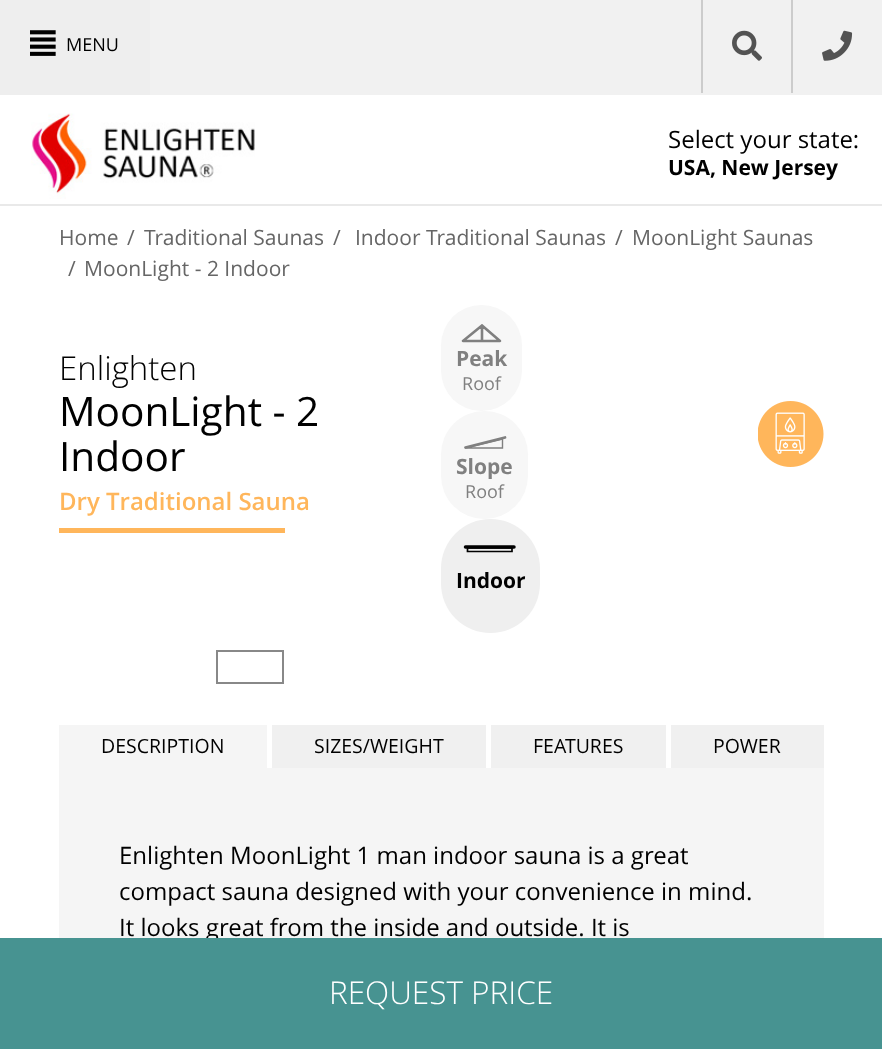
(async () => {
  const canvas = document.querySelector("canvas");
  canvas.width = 882;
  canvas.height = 1049;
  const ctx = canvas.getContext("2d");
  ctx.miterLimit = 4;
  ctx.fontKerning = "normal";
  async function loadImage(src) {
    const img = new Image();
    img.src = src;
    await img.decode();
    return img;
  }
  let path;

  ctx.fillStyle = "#ffffff";
  ctx.fillRect(0, 0, 882, 1049);
  for (const [x, y, w, h, color] of [
    [0, 204, 882, 2, "#e9e9e9"],
    [150, 0, 732, 95, "#f1f1f1"],
    [0, 0, 150, 95, "#eeeeee"],
  ]) {
    ctx.fillStyle = color;
    ctx.fillRect(x, y, w, h);
  }
  ctx.drawImage(await loadImage("img/1.png"), 30, 30, 26, 26);
  ctx.fillStyle = "#cccccc";
  ctx.fillRect(701, 0, 2, 93);
  ctx.drawImage(await loadImage("img/2.png"), 732, 30, 30, 31);
  ctx.fillRect(791, 0, 2, 93);
  ctx.drawImage(await loadImage("img/3.png"), 822, 30, 31, 31);
  ctx.drawImage(await loadImage("img/4.png"), 31, 113, 224, 86);
  ctx.fillStyle = "#f7f7f7";
  ctx.beginPath();
  ctx.roundRect(441, 305, 81, 106, 40.5);
  ctx.fill();
  path = new Path2D("M482 325.5L463 341H482M482 325.5L500 341H482M482 325.5V341");
  ctx.strokeStyle = "#808080";
  ctx.lineWidth = 2.6;
  ctx.lineCap = "round";
  ctx.lineJoin = "round";
  ctx.stroke(path);
  ctx.beginPath();
  ctx.roundRect(441, 411, 87, 108, 43.5);
  ctx.fill();
  path = new Path2D("M465.5 447.5L505 437.5");
  ctx.lineWidth = 2.8;
  ctx.lineJoin = "miter";
  ctx.stroke(path);
  path = new Path2D("M502.5 448H465.5L502.5 439Z");
  ctx.lineWidth = 1.4;
  ctx.lineCap = "butt";
  ctx.stroke(path);
  ctx.fillStyle = "#efefef";
  ctx.beginPath();
  ctx.roundRect(441, 519, 99, 114, 49.5);
  ctx.fill();
  path = new Path2D("M512 551.5H467.5V548H512Z");
  ctx.strokeStyle = "#000000";
  ctx.lineWidth = 1.7;
  ctx.stroke(path);
  path = new Path2D("M465.5 547H514");
  ctx.lineWidth = 3.5;
  ctx.lineCap = "round";
  ctx.stroke(path);
  ctx.strokeStyle = "#888888";
  ctx.lineWidth = 2;
  ctx.strokeRect(217, 651, 66, 32);
  for (const [x, y, w, h, color] of [
    [59, 725, 208, 43, "#f5f5f5"],
    [272, 725, 214, 43, "#f0f0f0"],
    [491, 725, 175, 43, "#f0f0f0"],
    [671, 725, 153, 43, "#f0f0f0"],
    [59, 768, 765, 170, "#f5f5f5"],
    [59, 528, 226, 5, "#ffb65b"],
  ]) {
    ctx.fillStyle = color;
    ctx.fillRect(x, y, w, h);
  }
  ctx.drawImage(await loadImage("img/5.png"), 758, 401, 66, 66);
  ctx.font = "18px Open Sans";
  ctx.fillStyle = "#000000";
  ctx.fillText("MENU", 66, 51);
  ctx.font = "24px Open Sans";
  ctx.fillText("Select your state:", 668, 148);
  ctx.font = "bold 21px Open Sans";
  ctx.fillText("USA, New Jersey", 668, 175);
  ctx.font = "21px Open Sans";
  ctx.fillStyle = "#666666";
  for (const [text, x, y] of [
    ["Home", 59, 245],
    ["/", 127, 245],
    ["Traditional Saunas", 144, 245],
    ["/", 333, 245],
    ["Indoor Traditional Saunas", 355, 245],
    ["/", 615, 245],
    ["MoonLight Saunas", 632, 245],
    ["/", 68, 276],
    ["MoonLight - 2 Indoor", 84, 276],
  ]) {
    ctx.fillText(text, x, y);
  }
  ctx.font = "bold 21px Open Sans";
  ctx.fillStyle = "#808080";
  ctx.fillText("Peak", 456, 366);
  ctx.font = "18px Open Sans";
  ctx.fillText("Roof", 462, 390);
  ctx.font = "bold 21px Open Sans";
  ctx.fillText("Slope", 456, 474);
  ctx.font = "18px Open Sans";
  ctx.fillText("Roof", 465, 498);
  ctx.font = "bold 21px Open Sans";
  ctx.fillStyle = "#000000";
  ctx.fillText("Indoor", 456, 588);
  ctx.font = "19.5px Open Sans";
  for (const [text, x, y] of [
    ["DESCRIPTION", 101, 753],
    ["SIZES/WEIGHT", 314, 753],
    ["FEATURES", 533, 753],
    ["POWER", 713, 753],
  ]) {
    ctx.fillText(text, x, y);
  }
  ctx.font = "24px Open Sans";
  for (const [text, x, y] of [
    ["Enlighten MoonLight 1 man indoor sauna is a great", 119, 864],
    ["compact sauna designed with your convenience in mind.", 119, 900],
    ["It looks great from the inside and outside. It is", 119, 936],
  ]) {
    ctx.fillText(text, x, y);
  }
  ctx.fillStyle = "#479391";
  ctx.fillRect(0, 938, 882, 111);
  ctx.font = "300 31.5px Open Sans";
  ctx.fillStyle = "#ffffff";
  ctx.fillText("REQUEST PRICE", 329, 1004);
  ctx.font = "300 33px Open Sans";
  ctx.fillStyle = "#000000";
  ctx.fillText("Enlighten", 59, 380);
  ctx.font = "40.5px Open Sans";
  ctx.fillText("MoonLight - 2", 59, 426);
  ctx.fillText("Indoor", 59, 471);
  ctx.font = "600 24px Open Sans";
  ctx.fillStyle = "#ffb65b";
  ctx.fillText("Dry Traditional Sauna", 59, 510);
})();
